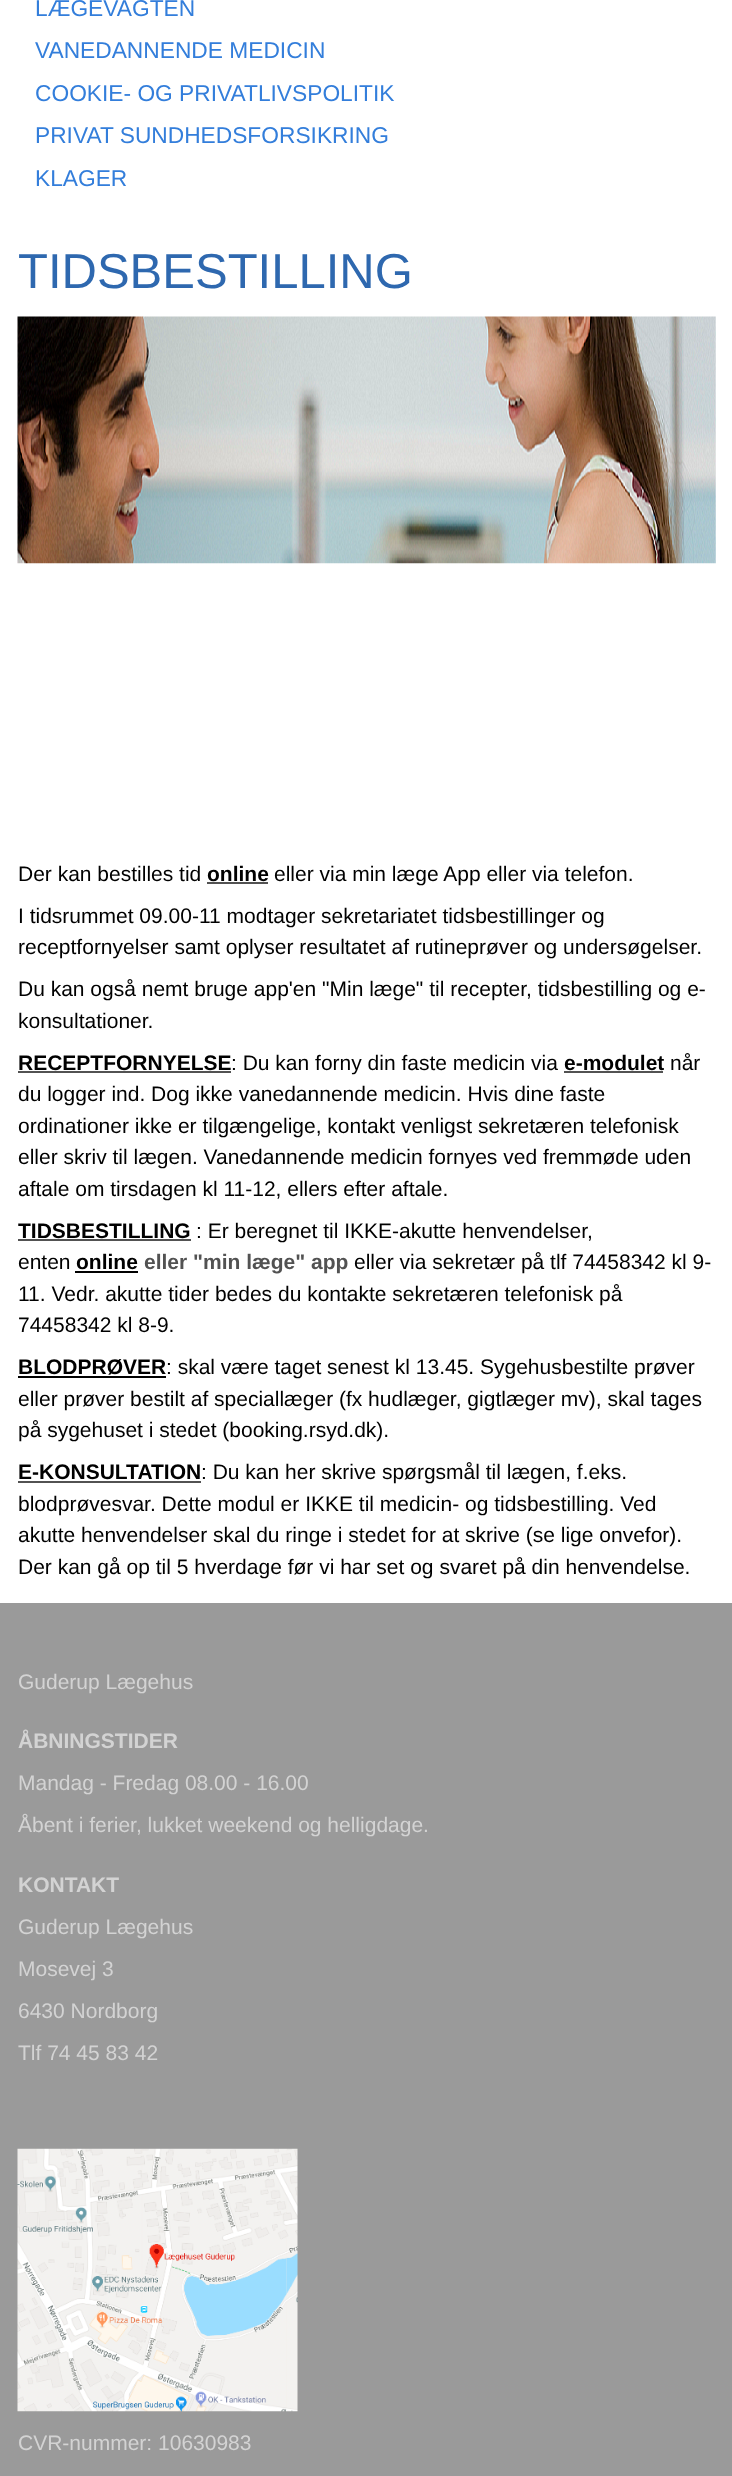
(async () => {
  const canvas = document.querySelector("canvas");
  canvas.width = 732;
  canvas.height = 2476;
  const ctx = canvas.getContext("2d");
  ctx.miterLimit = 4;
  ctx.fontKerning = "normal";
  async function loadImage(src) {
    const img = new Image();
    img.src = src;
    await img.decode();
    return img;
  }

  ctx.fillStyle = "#ffffff";
  ctx.fillRect(0, 0, 732, 2476);
  ctx.drawImage(await loadImage("img/1.png"), 17, 316, 699, 248);
  for (const [x, y, w, h, color] of [
    [207, 882, 61, 2, "#525252"],
    [18, 1071, 213, 2, "#525252"],
    [564, 1071, 99, 2, "#525252"],
    [18, 1239, 173, 2, "#525252"],
    [75, 1271, 63, 2, "#000000"],
    [18, 1376, 148, 2, "#000000"],
    [18, 1481, 183, 2, "#525252"],
    [0, 1603, 732, 873, "#9a9a9a"],
  ]) {
    ctx.fillStyle = color;
    ctx.fillRect(x, y, w, h);
  }
  ctx.drawImage(await loadImage("img/2.png"), 17, 2148, 281, 264);
  ctx.font = "22.75px Liberation Sans";
  ctx.fillStyle = "#337edb";
  for (const [text, x, y] of [
    ["LÆGEVAGTEN", 35, 16],
    ["VANEDANNENDE MEDICIN", 35, 58],
    ["COOKIE- OG PRIVATLIVSPOLITIK", 35, 101],
    ["PRIVAT SUNDHEDSFORSIKRING", 35, 143],
    ["KLAGER", 35, 186],
  ]) {
    ctx.fillText(text, x, y);
  }
  ctx.font = "49px Liberation Sans";
  ctx.fillStyle = "#2e68af";
  ctx.fillText("TIDSBESTILLING", 18, 288);
  ctx.font = "21px Liberation Sans";
  ctx.fillStyle = "#000000";
  ctx.fillText("Der kan bestilles tid", 18, 881);
  ctx.font = "bold 21px Liberation Sans";
  ctx.fillText("online", 207, 881);
  ctx.font = "21px Liberation Sans";
  for (const [text, x, y] of [
    ["eller via min læge App eller via telefon.", 274, 881],
    ["I tidsrummet 09.00-11 modtager sekretariatet tidsbestillinger og", 18, 923],
    ["receptfornyelser samt oplyser resultatet af rutineprøver og undersøgelser.", 18, 954],
    ["Du kan også nemt bruge app'en \"Min læge\" til recepter, tidsbestilling og e-", 18, 996],
    ["konsultationer.", 18, 1028],
  ]) {
    ctx.fillText(text, x, y);
  }
  ctx.font = "bold 21px Liberation Sans";
  ctx.fillText("RECEPTFORNYELSE", 18, 1070);
  ctx.font = "21px Liberation Sans";
  ctx.fillText(": Du kan forny din faste medicin via", 231, 1070);
  ctx.font = "bold 21px Liberation Sans";
  ctx.fillText("e-modulet", 564, 1070);
  ctx.font = "21px Liberation Sans";
  for (const [text, x, y] of [
    ["når", 670, 1070],
    ["du logger ind. Dog ikke vanedannende medicin. Hvis dine faste", 18, 1101],
    ["ordinationer ikke er tilgængelige, kontakt venligst sekretæren telefonisk", 18, 1133],
    ["eller skriv til lægen. Vanedannende medicin fornyes ved fremmøde uden", 18, 1164],
    ["aftale om tirsdagen kl 11-12, ellers efter aftale.", 18, 1196],
  ]) {
    ctx.fillText(text, x, y);
  }
  ctx.font = "bold 21px Liberation Sans";
  ctx.fillText("TIDSBESTILLING", 18, 1238);
  ctx.font = "21px Liberation Sans";
  ctx.fillText(": Er beregnet til IKKE-akutte henvendelser,", 196, 1238);
  ctx.fillText("enten", 18, 1269);
  ctx.font = "bold 21px Liberation Sans";
  ctx.fillText("online", 76, 1269);
  ctx.fillStyle = "#525252";
  ctx.fillText("eller \"min læge\" app", 144, 1269);
  ctx.font = "21px Liberation Sans";
  ctx.fillStyle = "#000000";
  for (const [text, x, y] of [
    ["eller via sekretær på tlf 74458342 kl 9-", 354, 1269],
    ["11. Vedr. akutte tider bedes du kontakte sekretæren telefonisk på", 18, 1301],
    ["74458342 kl 8-9.", 18, 1332],
  ]) {
    ctx.fillText(text, x, y);
  }
  ctx.font = "bold 21px Liberation Sans";
  ctx.fillText("BLODPRØVER", 18, 1374);
  ctx.font = "21px Liberation Sans";
  for (const [text, x, y] of [
    [": skal være taget senest kl 13.45. Sygehusbestilte prøver", 166, 1374],
    ["eller prøver bestilt af speciallæger (fx hudlæger, gigtlæger mv), skal tages", 18, 1406],
    ["på sygehuset i stedet (booking.rsyd.dk).", 18, 1437],
  ]) {
    ctx.fillText(text, x, y);
  }
  ctx.font = "bold 21px Liberation Sans";
  ctx.fillText("E-KONSULTATION", 18, 1479);
  ctx.font = "21px Liberation Sans";
  for (const [text, x, y] of [
    [": Du kan her skrive spørgsmål til lægen, f.eks.", 201, 1479],
    ["blodprøvesvar. Dette modul er IKKE til medicin- og tidsbestilling. Ved", 18, 1511],
    ["akutte henvendelser skal du ringe i stedet for at skrive (se lige onvefor).", 18, 1542],
    ["Der kan gå op til 5 hverdage før vi har set og svaret på din henvendelse.", 18, 1574],
  ]) {
    ctx.fillText(text, x, y);
  }
  ctx.fillStyle = "#d3d3d3";
  ctx.fillText("Guderup Lægehus", 18, 1689);
  ctx.font = "bold 21px Liberation Sans";
  ctx.fillText("ÅBNINGSTIDER", 18, 1748);
  ctx.font = "21px Liberation Sans";
  ctx.fillText("Mandag - Fredag 08.00 - 16.00", 18, 1790);
  ctx.fillText("Åbent i ferier, lukket weekend og helligdage.", 18, 1832);
  ctx.font = "bold 21px Liberation Sans";
  ctx.fillText("KONTAKT", 18, 1892);
  ctx.font = "21px Liberation Sans";
  for (const [text, x, y] of [
    ["Guderup Lægehus", 18, 1934],
    ["Mosevej 3", 18, 1976],
    ["6430 Nordborg", 18, 2018],
    ["Tlf 74 45 83 42", 18, 2060],
    ["CVR-nummer: 10630983", 18, 2450],
  ]) {
    ctx.fillText(text, x, y);
  }
})();
